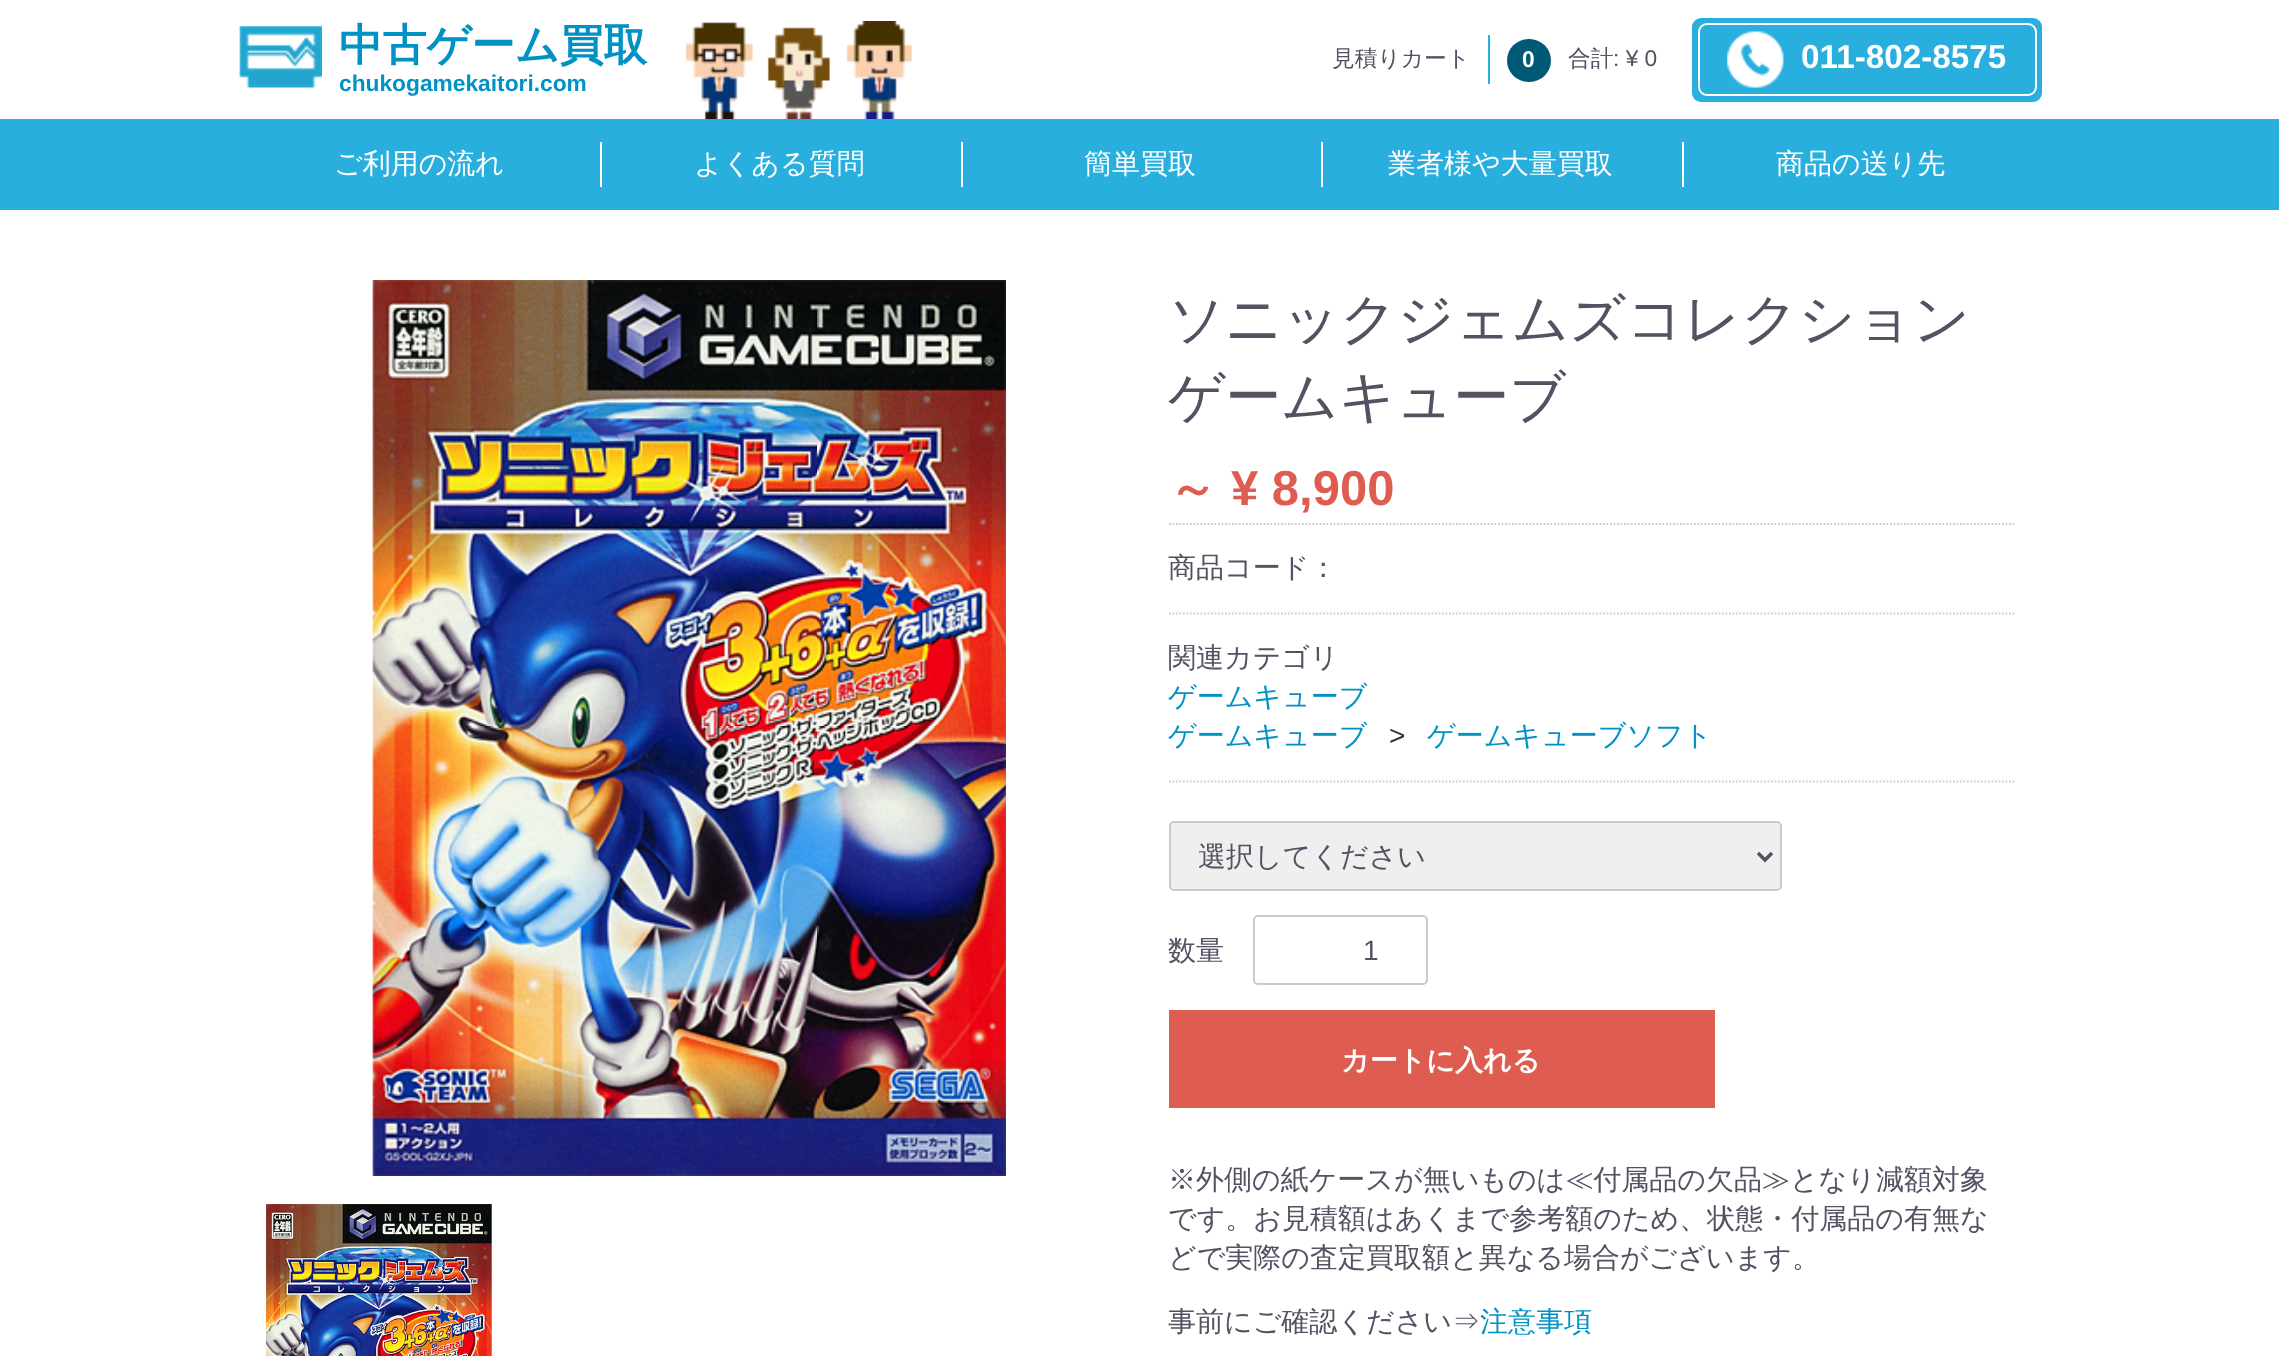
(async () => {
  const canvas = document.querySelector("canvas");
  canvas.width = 2279;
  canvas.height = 1356;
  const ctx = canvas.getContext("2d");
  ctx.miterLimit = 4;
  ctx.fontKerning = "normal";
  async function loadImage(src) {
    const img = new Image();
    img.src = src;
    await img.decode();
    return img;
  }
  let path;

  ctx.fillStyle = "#ffffff";
  ctx.fillRect(0, 0, 2279, 1356);
  ctx.drawImage(await loadImage("img/1.png"), 239, 26, 83, 62);
  ctx.drawImage(await loadImage("img/2.png"), 685, 21, 227, 98);
  ctx.fillStyle = "#29afdd";
  ctx.fillRect(1488, 35, 2, 49);
  ctx.fillStyle = "#005977";
  ctx.beginPath();
  ctx.roundRect(1507, 39, 44, 43, 21.5);
  ctx.fill();
  ctx.fillStyle = "#29afdd";
  ctx.beginPath();
  ctx.roundRect(1692, 18, 350, 84, 9);
  ctx.fill();
  ctx.drawImage(await loadImage("img/3.png"), 1727, 31, 57, 57);
  ctx.beginPath();
  ctx.roundRect(1699, 24, 337, 71, 8);
  ctx.strokeStyle = "#ffffff";
  ctx.lineWidth = 2;
  ctx.stroke();
  for (const [x, y, w, h, color] of [
    [0, 119, 2279, 91, "#29afdd"],
    [600, 142, 2, 45, "#ffffff"],
    [961, 142, 2, 45, "#ffffff"],
    [1321, 142, 2, 45, "#ffffff"],
    [1682, 142, 2, 45, "#ffffff"],
  ]) {
    ctx.fillStyle = color;
    ctx.fillRect(x, y, w, h);
  }
  ctx.drawImage(await loadImage("img/4.png"), 372, 280, 634, 896);
  ctx.drawImage(await loadImage("img/5.png"), 266, 1204, 226, 152);
  path = new Path2D("M1169 524H2016");
  ctx.strokeStyle = "#cccccc";
  ctx.lineWidth = 1.8;
  ctx.setLineDash([1.75, 1.75]);
  ctx.stroke(path);
  path = new Path2D("M1169 613.5H2016");
  ctx.stroke(path);
  path = new Path2D("M1169 781.5H2016");
  ctx.stroke(path);
  ctx.fillStyle = "#efefef";
  ctx.beginPath();
  ctx.roundRect(1170, 822, 611, 68, 4);
  ctx.fill();
  ctx.strokeStyle = "#c4ccce";
  ctx.lineWidth = 2;
  ctx.setLineDash([]);
  ctx.stroke();
  path = new Path2D("M1758 853L1765 860L1772 853");
  ctx.strokeStyle = "#525263";
  ctx.lineWidth = 3.5;
  ctx.stroke(path);
  ctx.beginPath();
  ctx.roundRect(1254, 916, 173, 68, 4);
  ctx.strokeStyle = "#c4ccce";
  ctx.lineWidth = 2;
  ctx.stroke();
  ctx.fillStyle = "#de5d50";
  ctx.fillRect(1169, 1010, 546, 98);
  ctx.font = "bold 43.75px WenQuanYi Zen Hei";
  ctx.fillStyle = "#0092c4";
  ctx.fillText("中古ゲーム買取", 339, 60);
  ctx.font = "bold 22.75px Liberation Sans";
  ctx.fillText("chukogamekaitori.com", 339, 91);
  ctx.font = "500 22.75px WenQuanYi Zen Hei";
  ctx.fillStyle = "#525263";
  ctx.fillText("見積りカート", 1332, 66);
  ctx.font = "bold 22.75px Liberation Sans";
  ctx.fillStyle = "#ffffff";
  ctx.fillText("0", 1522, 67);
  ctx.font = "500 22.75px WenQuanYi Zen Hei";
  ctx.fillStyle = "#525263";
  ctx.fillText("合計", 1568, 66);
  ctx.font = "22.75px Liberation Sans";
  ctx.fillText(": ¥ 0", 1613, 66);
  ctx.font = "bold 33.25px Liberation Sans";
  ctx.fillStyle = "#ffffff";
  ctx.fillText("011-802-8575", 1801, 68);
  ctx.font = "500 28px WenQuanYi Zen Hei";
  for (const [text, x, y] of [
    ["ご利用の流れ", 334, 173],
    ["よくある質問", 694, 173],
    ["簡単買取", 1084, 173],
    ["業者様や大量買取", 1388, 173],
    ["商品の送り先", 1776, 173],
  ]) {
    ctx.fillText(text, x, y);
  }
  ctx.font = "500 56px WenQuanYi Zen Hei";
  ctx.fillStyle = "#525263";
  ctx.fillText("ソニックジェムズコレクション", 1168, 338);
  ctx.fillText("ゲームキューブ", 1168, 416);
  ctx.font = "bold 49px WenQuanYi Zen Hei";
  ctx.fillStyle = "#de5d50";
  ctx.fillText("～", 1168, 505);
  ctx.font = "bold 49px Liberation Sans";
  ctx.fillText("¥ 8,900", 1231, 505);
  ctx.font = "500 28px WenQuanYi Zen Hei";
  ctx.fillStyle = "#525263";
  ctx.fillText("商品コード：", 1168, 577);
  ctx.fillText("関連カテゴリ", 1168, 667);
  ctx.fillStyle = "#0092c4";
  ctx.fillText("ゲームキューブ", 1168, 706);
  ctx.fillText("ゲームキューブ", 1168, 745);
  ctx.font = "28px Liberation Sans";
  ctx.fillStyle = "#333333";
  ctx.fillText(">", 1389, 745);
  ctx.font = "500 28px WenQuanYi Zen Hei";
  ctx.fillStyle = "#0092c4";
  ctx.fillText("ゲームキューブソフト", 1427, 745);
  ctx.save();
  ctx.beginPath();
  ctx.rect(1199, 840, 532, 33);
  ctx.clip();
  ctx.fillStyle = "#525263";
  ctx.fillText("選択してください", 1198, 866);
  ctx.restore();
  ctx.fillStyle = "#525263";
  ctx.fillText("数量", 1168, 960);
  ctx.font = "28px Liberation Sans";
  ctx.fillText("1", 1363, 960);
  ctx.font = "bold 28px WenQuanYi Zen Hei";
  ctx.fillStyle = "#ffffff";
  ctx.fillText("カートに入れる", 1341, 1070);
  ctx.font = "500 28px WenQuanYi Zen Hei";
  ctx.fillStyle = "#525263";
  for (const [text, x, y] of [
    ["※外側の紙ケースが無いものは≪付属品の欠品≫となり減額対象", 1168, 1189],
    ["です。お見積額はあくまで参考額のため、状態・付属品の有無な", 1168, 1228],
    ["どで実際の査定買取額と異なる場合がございます。", 1168, 1267],
    ["事前にご確認ください⇒", 1168, 1331],
  ]) {
    ctx.fillText(text, x, y);
  }
  ctx.fillStyle = "#0092c4";
  ctx.fillText("注意事項", 1480, 1331);
})();
